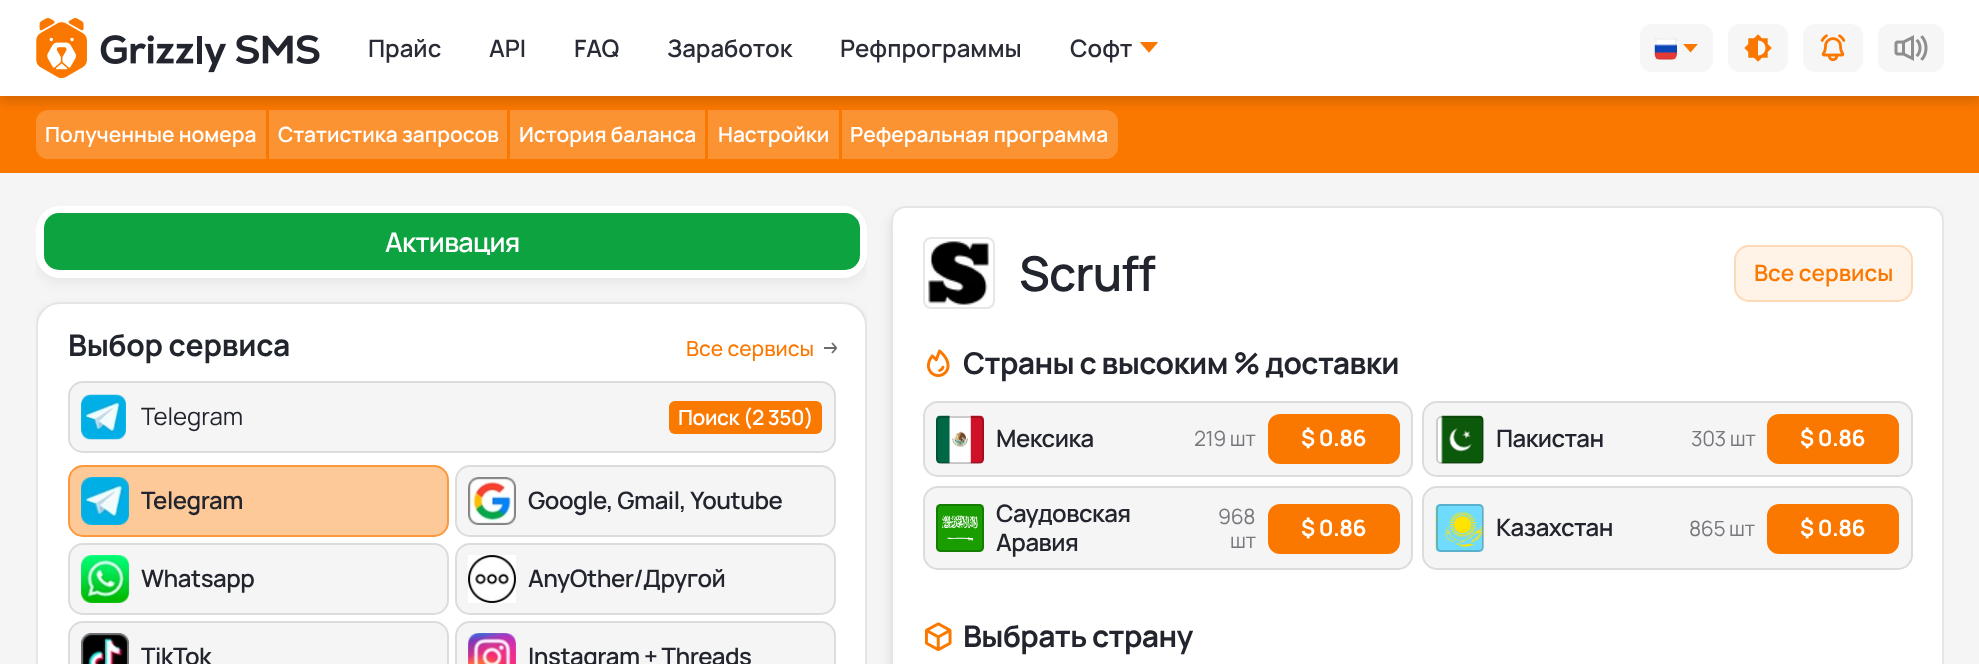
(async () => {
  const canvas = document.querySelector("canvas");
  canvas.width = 1979;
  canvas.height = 664;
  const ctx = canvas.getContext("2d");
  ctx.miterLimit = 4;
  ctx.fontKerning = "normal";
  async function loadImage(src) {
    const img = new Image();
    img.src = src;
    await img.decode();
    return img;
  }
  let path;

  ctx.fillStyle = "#f5f5f5";
  ctx.fillRect(0, 0, 1979, 664);
  ctx.fillStyle = "#fb7800";
  ctx.fillRect(0, 96, 1979, 77);
  ctx.fillStyle = "#fc9333";
  ctx.beginPath();
  ctx.roundRect(36, 110, 230, 49, [12, 0, 0, 12]);
  ctx.fill();
  for (const [x, y, w, h, color] of [
    [269, 110, 238, 49, "#fc9333"],
    [510, 110, 195, 49, "#fc9333"],
    [708, 110, 131, 49, "#fc9333"],
  ]) {
    ctx.fillStyle = color;
    ctx.fillRect(x, y, w, h);
  }
  ctx.beginPath();
  ctx.roundRect(842, 110, 276, 49, [0, 12, 12, 0]);
  ctx.fill();
  ctx.fillStyle = "rgba(0, 0, 0, 0.15)";
  ctx.filter = "blur(6px)";
  ctx.beginPath();
  ctx.rect(0, 6, 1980, 96);
  ctx.fill();
  ctx.filter = "none";
  ctx.fillStyle = "#ffffff";
  ctx.fillRect(0, 0, 1979, 96);
  ctx.drawImage(await loadImage("img/1.png"), 36, 18, 284, 60);
  ctx.drawImage(await loadImage("img/2.png"), 1140, 42, 18, 11);
  ctx.fillStyle = "#f6f6f7";
  ctx.beginPath();
  ctx.roundRect(1640, 24, 73, 48, 12);
  ctx.fill();
  ctx.drawImage(await loadImage("img/3.png"), 1654, 38, 23, 22);
  ctx.strokeStyle = "rgba(34, 37, 45, 0.05)";
  ctx.lineWidth = 2;
  ctx.strokeRect(1656, 39, 20, 20);
  ctx.drawImage(await loadImage("img/4.png"), 1683, 44, 15, 9);
  ctx.beginPath();
  ctx.roundRect(1728, 24, 60, 48, 12);
  ctx.fill();
  ctx.drawImage(await loadImage("img/5.png"), 1744, 34, 28, 28);
  ctx.beginPath();
  ctx.roundRect(1803, 24, 60, 48, 12);
  ctx.fill();
  ctx.drawImage(await loadImage("img/6.png"), 1820, 34, 26, 28);
  ctx.beginPath();
  ctx.roundRect(1878, 24, 66, 48, 12);
  ctx.fill();
  ctx.drawImage(await loadImage("img/7.png"), 1894, 35, 34, 26);
  ctx.save();
  ctx.beginPath();
  ctx.rect(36, 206, 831, 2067);
  ctx.clip();
  ctx.fillStyle = "rgba(0, 0, 0, 0.05)";
  ctx.filter = "blur(6px)";
  ctx.beginPath();
  ctx.roundRect(36, 212, 831, 72, 24);
  ctx.fill();
  ctx.filter = "none";
  ctx.restore();
  ctx.fillStyle = "#ffffff";
  ctx.beginPath();
  ctx.roundRect(36, 206, 831, 72, 24);
  ctx.fill();
  ctx.fillStyle = "#0ea341";
  ctx.beginPath();
  ctx.roundRect(44, 213, 816, 57, 15);
  ctx.fill();
  ctx.save();
  ctx.beginPath();
  ctx.rect(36, 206, 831, 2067);
  ctx.clip();
  ctx.fillStyle = "rgba(0, 0, 0, 0.1)";
  ctx.filter = "blur(6px)";
  ctx.beginPath();
  ctx.roundRect(36, 308, 831, 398, 24);
  ctx.fill();
  ctx.filter = "none";
  ctx.restore();
  ctx.fillStyle = "#ffffff";
  ctx.beginPath();
  ctx.roundRect(36, 302, 831, 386, 24);
  ctx.fill();
  ctx.beginPath();
  ctx.roundRect(37, 303, 829, 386, 23);
  ctx.strokeStyle = "rgba(0, 0, 0, 0.1)";
  ctx.stroke();
  path = new Path2D("M832 353L836.5 348M836.5 348L832 343M836.5 348H824");
  ctx.strokeStyle = "#6b6b6b";
  ctx.lineWidth = 1.8;
  ctx.stroke(path);
  ctx.fillStyle = "#f5f5f5";
  ctx.beginPath();
  ctx.roundRect(68, 381, 768, 72, 15);
  ctx.fill();
  ctx.beginPath();
  ctx.roundRect(69, 382, 766, 70, 14);
  ctx.strokeStyle = "rgba(0, 0, 0, 0.1)";
  ctx.lineWidth = 2;
  ctx.stroke();
  ctx.drawImage(await loadImage("img/8.png"), 81, 394, 45, 46);
  ctx.fillStyle = "#fa7900";
  ctx.beginPath();
  ctx.roundRect(669, 401, 153, 33, 6);
  ctx.fill();
  ctx.fillStyle = "#fdc999";
  ctx.beginPath();
  ctx.roundRect(69, 466, 379, 70, 14);
  ctx.fill();
  ctx.strokeStyle = "#fc983d";
  ctx.stroke();
  ctx.drawImage(await loadImage("img/9.png"), 81, 477, 48, 48);
  ctx.fillStyle = "#f5f5f5";
  ctx.beginPath();
  ctx.roundRect(455, 465, 381, 72, 15);
  ctx.fill();
  ctx.beginPath();
  ctx.roundRect(456, 466, 379, 70, 14);
  ctx.strokeStyle = "rgba(0, 0, 0, 0.1)";
  ctx.stroke();
  ctx.drawImage(await loadImage("img/10.png"), 468, 477, 48, 48);
  ctx.beginPath();
  ctx.roundRect(68, 543, 381, 72, 15);
  ctx.fill();
  ctx.beginPath();
  ctx.roundRect(69, 544, 379, 70, 14);
  ctx.stroke();
  ctx.drawImage(await loadImage("img/11.png"), 81, 555, 48, 48);
  ctx.beginPath();
  ctx.roundRect(455, 543, 381, 72, 15);
  ctx.fill();
  ctx.beginPath();
  ctx.roundRect(456, 544, 379, 70, 14);
  ctx.stroke();
  ctx.drawImage(await loadImage("img/12.png"), 468, 555, 48, 48);
  ctx.beginPath();
  ctx.roundRect(68, 621, 381, 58, 15);
  ctx.fill();
  ctx.beginPath();
  ctx.roundRect(69, 622, 379, 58, 14);
  ctx.stroke();
  ctx.drawImage(await loadImage("img/13.png"), 81, 633, 48, 31);
  ctx.beginPath();
  ctx.roundRect(455, 621, 381, 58, 15);
  ctx.fill();
  ctx.beginPath();
  ctx.roundRect(456, 622, 379, 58, 14);
  ctx.stroke();
  ctx.drawImage(await loadImage("img/14.png"), 468, 633, 48, 31);
  ctx.save();
  ctx.beginPath();
  ctx.rect(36, 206, 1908, 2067);
  ctx.clip();
  ctx.fillStyle = "rgba(0, 0, 0, 0.1)";
  ctx.filter = "blur(6px)";
  ctx.beginPath();
  ctx.roundRect(891, 212, 1053, 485, 15);
  ctx.fill();
  ctx.filter = "none";
  ctx.restore();
  ctx.fillStyle = "#ffffff";
  ctx.beginPath();
  ctx.roundRect(891, 206, 1053, 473, 15);
  ctx.fill();
  ctx.beginPath();
  ctx.roundRect(892, 207, 1051, 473, 14);
  ctx.stroke();
  ctx.drawImage(await loadImage("img/15.png"), 928, 241, 61, 64);
  ctx.beginPath();
  ctx.roundRect(924, 238, 70, 70, 7);
  ctx.strokeStyle = "#e6e6e6";
  ctx.stroke();
  ctx.fillStyle = "#fff2e6";
  ctx.beginPath();
  ctx.roundRect(1734, 245, 179, 57, 15);
  ctx.fill();
  ctx.beginPath();
  ctx.roundRect(1735, 246, 177, 55, 14);
  ctx.strokeStyle = "rgba(251, 120, 0, 0.2)";
  ctx.stroke();
  ctx.drawImage(await loadImage("img/16.png"), 926, 349, 24, 28);
  ctx.fillStyle = "#f5f5f5";
  ctx.beginPath();
  ctx.roundRect(923, 401, 490, 76, 15);
  ctx.fill();
  ctx.beginPath();
  ctx.roundRect(924, 402, 488, 74, 14);
  ctx.strokeStyle = "rgba(0, 0, 0, 0.1)";
  ctx.stroke();
  ctx.drawImage(await loadImage("img/17.png"), 936, 415, 48, 49);
  ctx.beginPath();
  ctx.roundRect(937, 417, 46, 46, 4);
  ctx.strokeStyle = "rgba(0, 0, 0, 0.2)";
  ctx.stroke();
  ctx.fillStyle = "#fb7800";
  ctx.beginPath();
  ctx.roundRect(1269, 415, 130, 48, 11);
  ctx.fill();
  ctx.strokeStyle = "#fb7800";
  ctx.stroke();
  ctx.fillStyle = "#f5f5f5";
  ctx.beginPath();
  ctx.roundRect(1422, 401, 491, 76, 15);
  ctx.fill();
  ctx.beginPath();
  ctx.roundRect(1423, 402, 489, 74, 14);
  ctx.strokeStyle = "rgba(0, 0, 0, 0.1)";
  ctx.stroke();
  ctx.drawImage(await loadImage("img/18.png"), 1436, 415, 48, 49);
  ctx.beginPath();
  ctx.roundRect(1437, 417, 46, 46, 4);
  ctx.strokeStyle = "rgba(0, 0, 0, 0.2)";
  ctx.stroke();
  ctx.fillStyle = "#fb7800";
  ctx.beginPath();
  ctx.roundRect(1768, 415, 130, 48, 11);
  ctx.fill();
  ctx.strokeStyle = "#fb7800";
  ctx.stroke();
  ctx.fillStyle = "#f5f5f5";
  ctx.beginPath();
  ctx.roundRect(923, 486, 490, 84, 15);
  ctx.fill();
  ctx.beginPath();
  ctx.roundRect(924, 487, 488, 82, 14);
  ctx.strokeStyle = "rgba(0, 0, 0, 0.1)";
  ctx.stroke();
  ctx.drawImage(await loadImage("img/19.png"), 936, 504, 48, 48);
  ctx.beginPath();
  ctx.roundRect(937, 505, 46, 46, 4);
  ctx.strokeStyle = "rgba(0, 0, 0, 0.2)";
  ctx.stroke();
  ctx.fillStyle = "#fb7800";
  ctx.beginPath();
  ctx.roundRect(1269, 505, 130, 48, 11);
  ctx.fill();
  ctx.strokeStyle = "#fb7800";
  ctx.stroke();
  ctx.fillStyle = "#f5f5f5";
  ctx.beginPath();
  ctx.roundRect(1422, 486, 491, 84, 15);
  ctx.fill();
  ctx.beginPath();
  ctx.roundRect(1423, 487, 489, 82, 14);
  ctx.strokeStyle = "rgba(0, 0, 0, 0.1)";
  ctx.stroke();
  ctx.drawImage(await loadImage("img/20.png"), 1435, 504, 49, 48);
  ctx.beginPath();
  ctx.roundRect(1437, 505, 46, 46, 4);
  ctx.strokeStyle = "rgba(0, 0, 0, 0.2)";
  ctx.stroke();
  ctx.fillStyle = "#fb7800";
  ctx.beginPath();
  ctx.roundRect(1768, 505, 130, 48, 11);
  ctx.fill();
  ctx.strokeStyle = "#fb7800";
  ctx.stroke();
  ctx.drawImage(await loadImage("img/21.png"), 924, 622, 28, 29);
  ctx.font = "600 24px Manrope";
  ctx.fillStyle = "#292c36";
  for (const [text, x, y] of [
    ["Прайс", 368, 57],
    ["API", 489, 57],
    ["FAQ", 574, 57],
    ["Заработок", 667, 57],
    ["Рефпрограммы", 840, 57],
    ["Софт", 1070, 57],
  ]) {
    ctx.fillText(text, x, y);
  }
  ctx.font = "600 21px Manrope";
  ctx.fillStyle = "#ffffff";
  for (const [text, x, y] of [
    ["Полученные номера", 45, 142],
    ["Статистика запросов", 278, 142],
    ["История баланса", 519, 142],
    ["Настройки", 718, 142],
    ["Реферальная программа", 850, 142],
  ]) {
    ctx.fillText(text, x, y);
  }
  ctx.letterSpacing = "-0.75px";
  ctx.font = "600 27px Manrope";
  ctx.fillText("Активация", 385, 252);
  ctx.letterSpacing = "-0.25px";
  ctx.font = "bold 30px Manrope";
  ctx.fillStyle = "#22252d";
  ctx.fillText("Выбор сервиса", 68, 356);
  ctx.letterSpacing = "0px";
  ctx.font = "500 21px Manrope";
  ctx.fillStyle = "#fb7800";
  ctx.fillText("Все сервисы", 686, 356);
  ctx.font = "24px Manrope";
  ctx.fillStyle = "#22252d";
  ctx.fillText("Telegram", 141, 425);
  ctx.letterSpacing = "-0.4px";
  ctx.font = "600 21px Manrope";
  ctx.fillStyle = "#ffffff";
  ctx.fillText("Поиск (2 350)", 678, 425);
  ctx.letterSpacing = "-0.5px";
  ctx.font = "600 24px Manrope";
  ctx.fillStyle = "#22252d";
  for (const [text, x, y] of [
    ["Telegram", 141, 509],
    ["Google, Gmail, Youtube", 528, 509],
    ["Whatsapp", 141, 587],
    ["AnyOther/Другой", 528, 587],
    ["TikTok", 141, 665],
    ["Instagram + Threads", 528, 665],
  ]) {
    ctx.fillText(text, x, y);
  }
  ctx.letterSpacing = "-1px";
  ctx.font = "600 48px Manrope";
  ctx.fillText("Scruff", 1019, 291);
  ctx.letterSpacing = "0px";
  ctx.font = "600 22.5px Manrope";
  ctx.fillStyle = "#fb7800";
  ctx.fillText("Все сервисы", 1754, 281);
  ctx.letterSpacing = "-0.6px";
  ctx.font = "bold 30px Manrope";
  ctx.fillStyle = "#22252d";
  ctx.fillText("Страны с высоким % доставки", 963, 374);
  ctx.letterSpacing = "-0.5px";
  ctx.font = "600 24px Manrope";
  ctx.fillText("Мексика", 996, 447);
  ctx.letterSpacing = "-0.4px";
  ctx.font = "21px Manrope";
  ctx.fillStyle = "#76787d";
  ctx.fillText("219 шт", 1194, 446);
  ctx.letterSpacing = "-0.5px";
  ctx.font = "bold 22.5px Manrope";
  ctx.fillStyle = "#ffffff";
  ctx.fillText("$ 0.86", 1301, 446);
  ctx.font = "600 24px Manrope";
  ctx.fillStyle = "#22252d";
  ctx.fillText("Пакистан", 1496, 447);
  ctx.letterSpacing = "-0.4px";
  ctx.font = "21px Manrope";
  ctx.fillStyle = "#76787d";
  ctx.fillText("303 шт", 1691, 446);
  ctx.letterSpacing = "-0.5px";
  ctx.font = "bold 22.5px Manrope";
  ctx.fillStyle = "#ffffff";
  ctx.fillText("$ 0.86", 1800, 446);
  ctx.font = "600 24px Manrope";
  ctx.fillStyle = "#22252d";
  ctx.fillText("Саудовская", 996, 522);
  ctx.fillText("Аравия", 996, 551);
  ctx.letterSpacing = "-0.4px";
  ctx.font = "21px Manrope";
  ctx.fillStyle = "#76787d";
  ctx.fillText("968", 1218, 524);
  ctx.fillText("шт", 1230, 548);
  ctx.letterSpacing = "-0.5px";
  ctx.font = "bold 22.5px Manrope";
  ctx.fillStyle = "#ffffff";
  ctx.fillText("$ 0.86", 1301, 536);
  ctx.font = "600 24px Manrope";
  ctx.fillStyle = "#22252d";
  ctx.fillText("Казахстан", 1496, 536);
  ctx.letterSpacing = "-0.4px";
  ctx.font = "21px Manrope";
  ctx.fillStyle = "#76787d";
  ctx.fillText("865 шт", 1689, 536);
  ctx.letterSpacing = "-0.5px";
  ctx.font = "bold 22.5px Manrope";
  ctx.fillStyle = "#ffffff";
  ctx.fillText("$ 0.86", 1800, 536);
  ctx.letterSpacing = "-0.6px";
  ctx.font = "bold 30px Manrope";
  ctx.fillStyle = "#22252d";
  ctx.fillText("Выбрать страну", 963, 647);
})();
